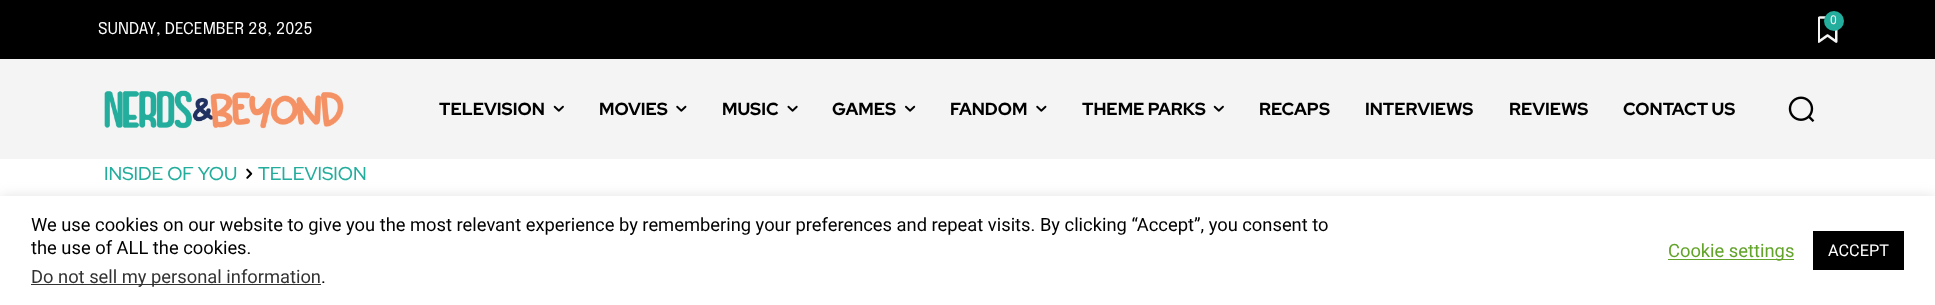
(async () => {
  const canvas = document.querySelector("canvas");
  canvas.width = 1935;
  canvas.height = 305;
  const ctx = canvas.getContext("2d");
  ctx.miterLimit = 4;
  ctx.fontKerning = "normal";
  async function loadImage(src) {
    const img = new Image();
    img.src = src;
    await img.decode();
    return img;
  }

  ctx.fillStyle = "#ffffff";
  ctx.fillRect(0, 0, 1935, 305);
  ctx.fillStyle = "#000000";
  ctx.fillRect(0, 0, 1935, 59);
  ctx.drawImage(await loadImage("img/1.png"), 1818, 16, 20, 27);
  ctx.fillStyle = "#23ad9c";
  ctx.beginPath();
  ctx.arc(1834, 21, 10, 0, Math.PI * 2);
  ctx.fill();
  ctx.fillStyle = "#f4f4f4";
  ctx.fillRect(0, 59, 1935, 100);
  ctx.drawImage(await loadImage("img/2.png"), 104, 90, 240, 39);
  ctx.drawImage(await loadImage("img/3.png"), 553, 105, 11, 7);
  ctx.drawImage(await loadImage("img/4.png"), 676, 105, 11, 7);
  ctx.drawImage(await loadImage("img/5.png"), 787, 105, 11, 7);
  ctx.drawImage(await loadImage("img/6.png"), 905, 105, 11, 7);
  ctx.drawImage(await loadImage("img/4.png"), 1036, 105, 11, 7);
  ctx.drawImage(await loadImage("img/3.png"), 1213, 105, 11, 7);
  ctx.drawImage(await loadImage("img/7.png"), 1788, 96, 27, 26);
  ctx.drawImage(await loadImage("img/8.png"), 246, 168, 7, 11);
  ctx.fillStyle = "rgba(172, 171, 171, 0.3)";
  ctx.filter = "blur(6px)";
  ctx.beginPath();
  ctx.rect(0, 195, 1935, 109);
  ctx.fill();
  ctx.filter = "none";
  for (const [x, y, w, h, color] of [
    [0, 196, 1935, 109, "#ffffff"],
    [31, 284, 290, 1, "#333333"],
    [1668, 259, 126, 1, "#62a329"],
    [1813, 231, 91, 39, "#000000"],
  ]) {
    ctx.fillStyle = color;
    ctx.fillRect(x, y, w, h);
  }
  ctx.font = "12px Roboto";
  ctx.fillStyle = "#f4f4f4";
  ctx.fillText("0", 1830, 24);
  ctx.font = "16.25px Epilogue";
  ctx.fillStyle = "#ffffff";
  ctx.fillText("SUNDAY, DECEMBER 28, 2025", 98, 34);
  ctx.font = "800 17.5px Red Hat Display";
  ctx.fillStyle = "#000000";
  for (const [text, x, y] of [
    ["TELEVISION", 439, 115],
    ["MOVIES", 599, 115],
    ["MUSIC", 722, 115],
    ["GAMES", 832, 115],
    ["FANDOM", 950, 115],
    ["THEME PARKS", 1082, 115],
    ["RECAPS", 1259, 115],
    ["INTERVIEWS", 1365, 115],
    ["REVIEWS", 1509, 115],
    ["CONTACT US", 1623, 115],
  ]) {
    ctx.fillText(text, x, y);
  }
  ctx.font = "500 18.75px Red Hat Display";
  ctx.fillStyle = "#23ad9c";
  ctx.fillText("INSIDE OF YOU", 104, 180);
  ctx.fillText("TELEVISION", 258, 180);
  ctx.font = "18.33px Roboto";
  ctx.fillStyle = "#000000";
  ctx.fillText("We use cookies on our website to give you the most relevant experience by remembering your preferences and repeat visits. By clicking “Accept”, you consent to", 31, 231);
  ctx.fillText("the use of ALL the cookies.", 31, 254);
  ctx.fillStyle = "#333333";
  ctx.fillText("Do not sell my personal information", 31, 283);
  ctx.fillStyle = "#000000";
  ctx.fillText(".", 321, 283);
  ctx.fillStyle = "#62a329";
  ctx.fillText("Cookie settings", 1668, 257);
  ctx.font = "16.25px Roboto";
  ctx.fillStyle = "#ffffff";
  ctx.fillText("ACCEPT", 1828, 256);
})();
